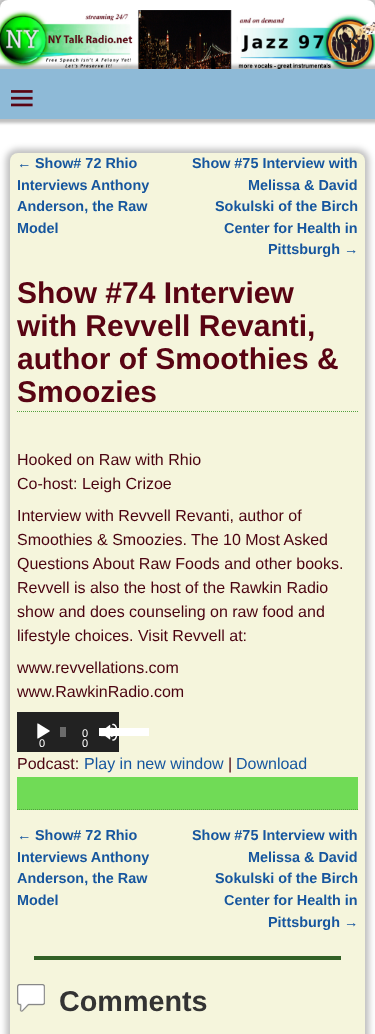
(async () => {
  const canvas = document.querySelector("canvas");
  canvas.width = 375;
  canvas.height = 1034;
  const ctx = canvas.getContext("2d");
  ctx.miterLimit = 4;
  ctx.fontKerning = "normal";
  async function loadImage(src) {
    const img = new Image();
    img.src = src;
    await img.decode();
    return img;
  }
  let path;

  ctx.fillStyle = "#ffffff";
  ctx.fillRect(0, 0, 375, 1034);
  ctx.fillStyle = "rgba(0, 0, 0, 0.25)";
  ctx.filter = "blur(1.5px)";
  ctx.beginPath();
  ctx.roundRect(-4, -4, 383, 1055, 12);
  ctx.fill();
  ctx.filter = "none";
  ctx.fillStyle = "#ffffff";
  ctx.beginPath();
  ctx.roundRect(0, 0, 375, 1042, 8);
  ctx.fill();
  ctx.drawImage(await loadImage("img/1.png"), 0, 10, 375, 59);
  ctx.drawImage(await loadImage("img/2.png"), 335, 24, 27, 28);
  ctx.fillStyle = "rgba(0, 0, 0, 0.25)";
  ctx.filter = "blur(1.5px)";
  ctx.beginPath();
  ctx.rect(-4, 65, 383, 58);
  ctx.fill();
  ctx.filter = "none";
  ctx.fillStyle = "#8ebad7";
  ctx.fillRect(0, 69, 375, 50);
  ctx.drawImage(await loadImage("img/3.png"), 11, 90, 22, 17);
  ctx.fillStyle = "rgba(0, 0, 0, 0.25)";
  ctx.filter = "blur(3px)";
  ctx.beginPath();
  ctx.roundRect(6, 149, 363, 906, 12);
  ctx.fill();
  ctx.filter = "none";
  ctx.fillStyle = "#f5f5dc";
  ctx.beginPath();
  ctx.roundRect(10, 153, 355, 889, 8);
  ctx.fill();
  path = new Path2D("M17 411.5H358");
  ctx.strokeStyle = "#53a13f";
  ctx.setLineDash([1, 1]);
  ctx.stroke(path);
  ctx.fillStyle = "#222222";
  ctx.fillRect(17, 712, 102, 40);
  ctx.drawImage(await loadImage("img/4.png"), 37, 723, 13, 16);
  ctx.fillStyle = "#6b6b6b";
  ctx.fillRect(60, 727, 6, 10);
  ctx.drawImage(await loadImage("img/5.png"), 100, 723, 18, 18);
  ctx.fillStyle = "#ffffff";
  ctx.fillRect(99, 728, 50, 8);
  ctx.fillStyle = "#70db56";
  ctx.fillRect(17, 777, 341, 33);
  path = new Path2D("M17 809.5H358");
  ctx.stroke(path);
  ctx.fillStyle = "#326126";
  ctx.fillRect(34, 956, 307, 4);
  ctx.drawImage(await loadImage("img/6.png"), 17, 984, 28, 28);
  ctx.font = "14.4px Liberation Sans";
  ctx.fillStyle = "#16569e";
  ctx.fillText("←", 17, 168);
  ctx.font = "bold 14.4px Liberation Sans";
  for (const [text, x, y] of [
    ["Show# 72 Rhio", 35, 168],
    ["Interviews Anthony", 17, 190],
    ["Anderson, the Raw", 17, 211],
    ["Model", 17, 233],
    ["Show #75 Interview with", 192, 168],
    ["Melissa & David", 248, 190],
    ["Sokulski of the Birch", 215, 211],
    ["Center for Health in", 224, 233],
    ["Pittsburgh", 268, 254],
  ]) {
    ctx.fillText(text, x, y);
  }
  ctx.font = "14.4px Liberation Sans";
  ctx.fillText("→", 344, 254);
  ctx.font = "bold 30px Liberation Sans";
  ctx.fillStyle = "#590413";
  for (const [text, x, y] of [
    ["Show #74 Interview", 17, 303],
    ["with Revvell Revanti,", 17, 336],
    ["author of Smoothies &", 17, 369],
    ["Smoozies", 17, 402],
  ]) {
    ctx.fillText(text, x, y);
  }
  ctx.font = "16px Liberation Sans";
  ctx.fillStyle = "#4a0310";
  for (const [text, x, y] of [
    ["Hooked on Raw with Rhio", 17, 465],
    ["Co-host: Leigh Crizoe", 17, 489],
    ["Interview with Revvell Revanti, author of", 17, 521],
    ["Smoothies & Smoozies. The 10 Most Asked", 17, 545],
    ["Questions About Raw Foods and other books.", 17, 569],
    ["Revvell is also the host of the Rawkin Radio", 17, 593],
    ["show and does counseling on raw food and", 17, 617],
    ["lifestyle choices. Visit Revvell at:", 17, 641],
    ["www.revvellations.com", 17, 673],
    ["www.RawkinRadio.com", 17, 697],
  ]) {
    ctx.fillText(text, x, y);
  }
  ctx.font = "11px Liberation Sans";
  ctx.fillStyle = "#ffffff";
  for (const [text, x, y] of [
    ["0", 39, 747],
    ["0", 82, 737],
    ["0", 82, 747],
  ]) {
    ctx.fillText(text, x, y);
  }
  ctx.font = "16px Liberation Sans";
  ctx.fillStyle = "#4a0310";
  ctx.fillText("Podcast:", 17, 769);
  ctx.fillStyle = "#16569e";
  ctx.fillText("Play in new window", 84, 769);
  ctx.fillStyle = "#4a0310";
  ctx.fillText("|", 228, 769);
  ctx.fillStyle = "#16569e";
  ctx.fillText("Download", 236, 769);
  ctx.font = "14.4px Liberation Sans";
  ctx.fillText("←", 17, 840);
  ctx.font = "bold 14.4px Liberation Sans";
  for (const [text, x, y] of [
    ["Show# 72 Rhio", 35, 840],
    ["Interviews Anthony", 17, 862],
    ["Anderson, the Raw", 17, 883],
    ["Model", 17, 905],
    ["Show #75 Interview with", 192, 840],
    ["Melissa & David", 248, 862],
    ["Sokulski of the Birch", 215, 883],
    ["Center for Health in", 224, 905],
    ["Pittsburgh", 268, 927],
  ]) {
    ctx.fillText(text, x, y);
  }
  ctx.font = "14.4px Liberation Sans";
  ctx.fillText("→", 344, 927);
  ctx.font = "bold 28.75px Liberation Sans";
  ctx.fillStyle = "#333333";
  ctx.fillText("Comments", 59, 1011);
})();
